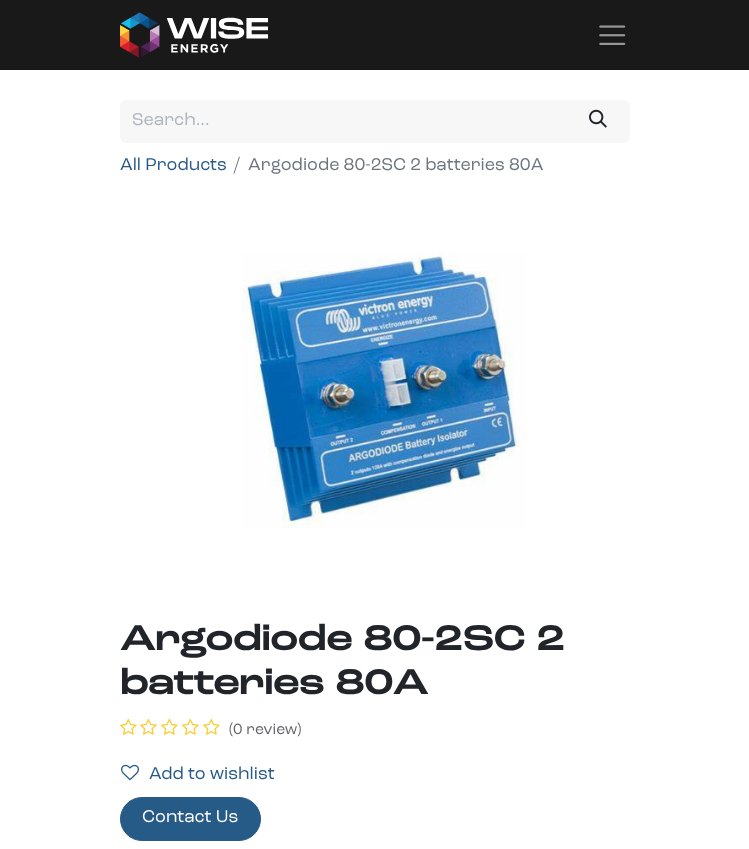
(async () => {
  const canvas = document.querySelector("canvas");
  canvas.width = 749;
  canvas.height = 849;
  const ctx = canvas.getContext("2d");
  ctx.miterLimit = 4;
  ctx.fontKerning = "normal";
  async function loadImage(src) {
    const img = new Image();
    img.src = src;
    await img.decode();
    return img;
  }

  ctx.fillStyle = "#ffffff";
  ctx.fillRect(0, 0, 749, 849);
  ctx.fillStyle = "#191919";
  ctx.fillRect(0, 0, 749, 70);
  ctx.drawImage(await loadImage("img/1.png"), 120, 12, 148, 46);
  ctx.drawImage(await loadImage("img/2.png"), 599, 25, 27, 20);
  ctx.fillStyle = "#f7f7f7";
  ctx.beginPath();
  ctx.roundRect(120, 100, 447, 43, [6, 0, 0, 6]);
  ctx.fill();
  ctx.beginPath();
  ctx.roundRect(566, 100, 64, 43, [0, 6, 6, 0]);
  ctx.fill();
  ctx.drawImage(await loadImage("img/3.png"), 589, 109, 18, 19);
  ctx.drawImage(await loadImage("img/4.png"), 242, 252, 284, 276);
  ctx.drawImage(await loadImage("img/5.png"), 120, 718, 17, 17);
  ctx.drawImage(await loadImage("img/5.png"), 140, 718, 17, 17);
  ctx.drawImage(await loadImage("img/5.png"), 161, 718, 17, 17);
  ctx.drawImage(await loadImage("img/5.png"), 182, 718, 17, 17);
  ctx.drawImage(await loadImage("img/5.png"), 203, 718, 17, 17);
  ctx.drawImage(await loadImage("img/6.png"), 121, 764, 18, 17);
  ctx.fillStyle = "#265a87";
  ctx.beginPath();
  ctx.roundRect(120.5, 797.5, 140, 43, 21.5);
  ctx.fill();
  ctx.strokeStyle = "#265a87";
  ctx.stroke();
  ctx.font = "18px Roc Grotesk";
  ctx.fillStyle = "#adb5bd";
  ctx.fillText("Search...", 132, 125);
  ctx.fillStyle = "#265a87";
  ctx.fillText("All Products", 120, 170);
  ctx.fillStyle = "#6c757d";
  ctx.fillText("/", 234, 170);
  ctx.fillText("Argodiode 80-2SC 2 batteries 80A", 248, 170);
  ctx.font = "bold 36px Roc Grotesk";
  ctx.fillStyle = "#212529";
  ctx.fillText("Argodiode 80-2SC 2", 120, 650);
  ctx.fillText("batteries 80A", 120, 694);
  ctx.font = "15.75px Roc Grotesk";
  ctx.fillStyle = "#646669";
  ctx.fillText("(0 review)", 229, 734);
  ctx.font = "18px Roc Grotesk";
  ctx.fillStyle = "#265a87";
  ctx.fillText("Add to wishlist", 149, 779);
  ctx.fillStyle = "#ffffff";
  ctx.fillText("Contact Us", 142, 822);
})();
